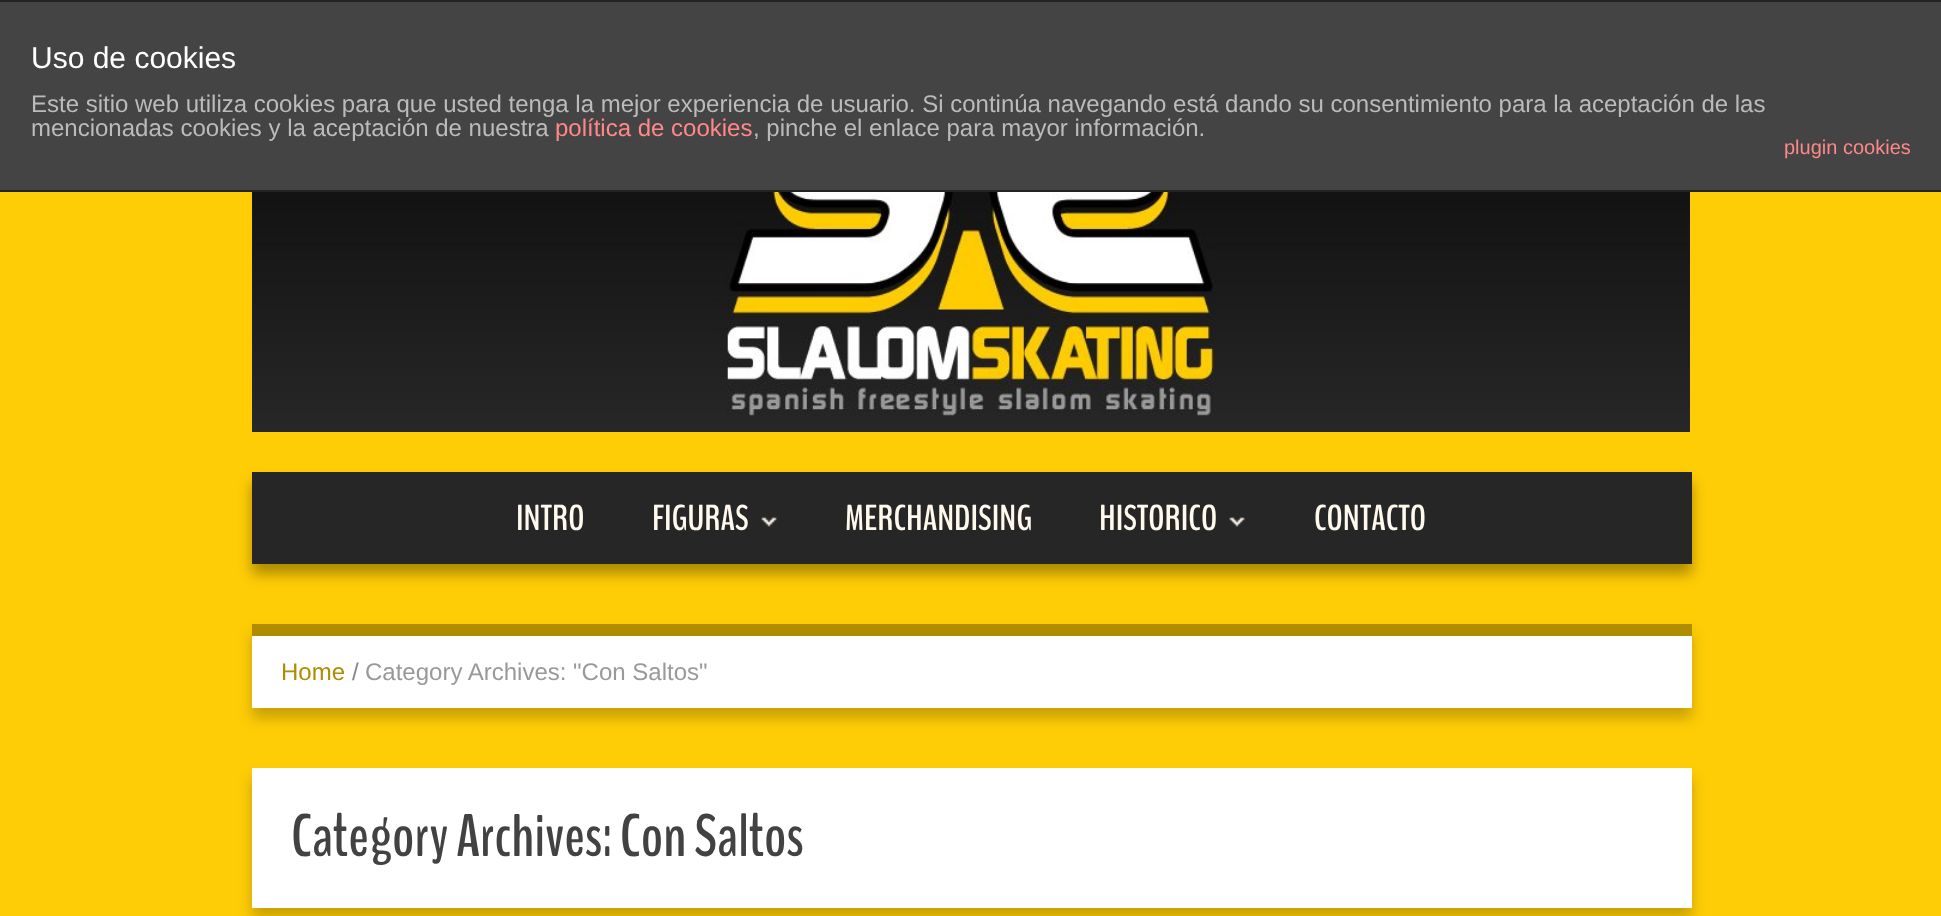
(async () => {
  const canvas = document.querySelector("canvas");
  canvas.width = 1941;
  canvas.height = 916;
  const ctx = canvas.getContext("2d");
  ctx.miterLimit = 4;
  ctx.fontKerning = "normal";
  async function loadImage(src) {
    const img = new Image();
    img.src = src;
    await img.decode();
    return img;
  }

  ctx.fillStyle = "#ffcd06";
  ctx.fillRect(0, 0, 1941, 916);
  for (const [x, y, w, h, color] of [
    [0, 2, 1941, 188, "#444444"],
    [0, 0, 1941, 2, "#222222"],
    [0, 190, 1941, 2, "#222222"],
  ]) {
    ctx.fillStyle = color;
    ctx.fillRect(x, y, w, h);
  }
  ctx.drawImage(await loadImage("img/1.png"), 252, 192, 1438, 240);
  ctx.fillStyle = "rgba(0, 0, 0, 0.33)";
  ctx.filter = "blur(7px)";
  ctx.beginPath();
  ctx.rect(252, 482, 1440, 92);
  ctx.fill();
  ctx.filter = "none";
  ctx.fillStyle = "#262626";
  ctx.fillRect(252, 472, 1440, 92);
  ctx.drawImage(await loadImage("img/2.png"), 761, 517, 16, 10);
  ctx.drawImage(await loadImage("img/2.png"), 1229, 517, 16, 10);
  ctx.fillStyle = "rgba(0, 0, 0, 0.22)";
  ctx.filter = "blur(7px)";
  ctx.beginPath();
  ctx.rect(252, 634, 1440, 84);
  ctx.fill();
  ctx.filter = "none";
  ctx.fillStyle = "#ffffff";
  ctx.fillRect(252, 636, 1440, 72);
  ctx.fillStyle = "#af8c00";
  ctx.fillRect(252, 624, 1440, 12);
  ctx.fillStyle = "rgba(0, 0, 0, 0.22)";
  ctx.filter = "blur(7px)";
  ctx.beginPath();
  ctx.rect(252, 778, 1440, 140);
  ctx.fill();
  ctx.filter = "none";
  ctx.fillStyle = "#ffffff";
  ctx.fillRect(252, 768, 1440, 140);
  ctx.font = "30px Liberation Sans";
  ctx.fillText("Uso de cookies", 31, 68);
  ctx.font = "24px Liberation Sans";
  ctx.fillStyle = "#bbbbbb";
  ctx.fillText("Este sitio web utiliza cookies para que usted tenga la mejor experiencia de usuario. Si continúa navegando está dando su consentimiento para la aceptación de las", 31, 112);
  ctx.fillText("mencionadas cookies y la aceptación de nuestra", 31, 136);
  ctx.fillStyle = "#ff8888";
  ctx.fillText("política de cookies", 555, 136);
  ctx.fillStyle = "#bbbbbb";
  ctx.fillText(", pinche el enlace para mayor información.", 753, 136);
  ctx.font = "20px Liberation Sans";
  ctx.fillStyle = "#ff8888";
  ctx.fillText("plugin cookies", 1784, 154);
  ctx.font = "bold 36px BenchNine";
  ctx.fillStyle = "#fff8ed";
  for (const [text, x, y] of [
    ["INTRO", 516, 530],
    ["FIGURAS", 652, 530],
    ["MERCHANDISING", 845, 530],
    ["HISTORICO", 1099, 530],
    ["CONTACTO", 1314, 530],
  ]) {
    ctx.fillText(text, x, y);
  }
  ctx.font = "24px Liberation Sans";
  ctx.fillStyle = "#af8c00";
  ctx.fillText("Home", 281, 680);
  ctx.fillStyle = "#8b8686";
  ctx.fillText("/", 352, 680);
  ctx.fillStyle = "#999999";
  ctx.fillText("Category Archives: \"Con Saltos\"", 365, 680);
  ctx.font = "bold 60px BenchNine";
  ctx.fillStyle = "#434242";
  ctx.fillText("Category Archives: Con Saltos", 291, 856);
})();
